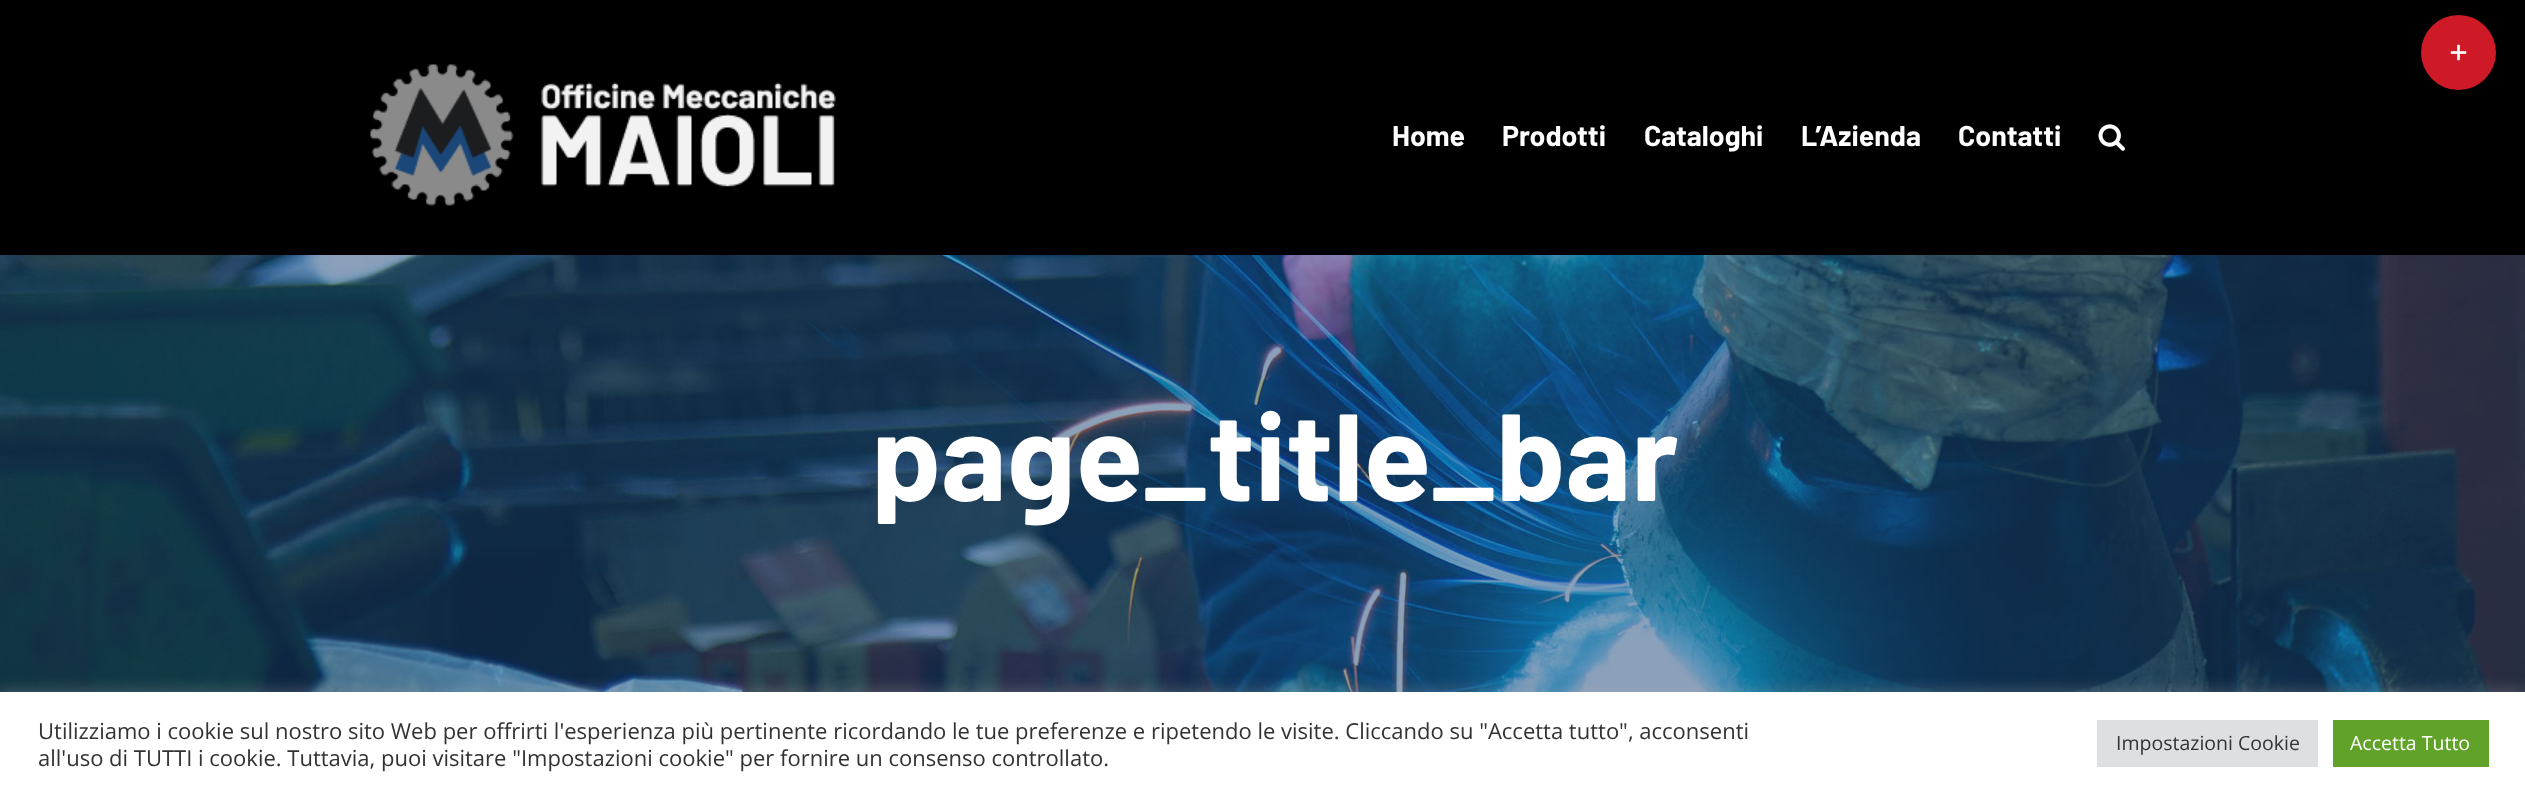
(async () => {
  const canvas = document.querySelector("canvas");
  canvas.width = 2525;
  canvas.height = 795;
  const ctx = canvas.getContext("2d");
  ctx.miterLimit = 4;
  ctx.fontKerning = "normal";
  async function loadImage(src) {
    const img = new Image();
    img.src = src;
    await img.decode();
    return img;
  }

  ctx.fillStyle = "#ffffff";
  ctx.fillRect(0, 0, 2525, 795);
  ctx.fillStyle = "#000000";
  ctx.fillRect(0, 0, 2525, 255);
  ctx.fillStyle = "#ce1a26";
  ctx.beginPath();
  ctx.arc(2458.5, 52.5, 37.5, 0, Math.PI * 2);
  ctx.fill();
  ctx.drawImage(await loadImage("img/1.png"), 2450, 44, 17, 17);
  ctx.drawImage(await loadImage("img/2.png"), 370, 64, 466, 142);
  ctx.drawImage(await loadImage("img/3.png"), 2098, 124, 27, 27);
  ctx.drawImage(await loadImage("img/4.png"), 0, 255, 2525, 437);
  ctx.fillStyle = "rgba(172, 171, 171, 0.3)";
  ctx.filter = "blur(7.5px)";
  ctx.beginPath();
  ctx.rect(0, 690, 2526, 104);
  ctx.fill();
  ctx.filter = "none";
  for (const [x, y, w, h, color] of [
    [0, 692, 2525, 103, "#ffffff"],
    [2097, 720, 221, 47, "#dedfe0"],
    [2333, 720, 156, 47, "#61a229"],
  ]) {
    ctx.fillStyle = color;
    ctx.fillRect(x, y, w, h);
  }
  ctx.font = "bold 28.5px Barlow";
  ctx.fillStyle = "#ffffff";
  for (const [text, x, y] of [
    ["Home", 1392, 146],
    ["Prodotti", 1502, 146],
    ["Cataloghi", 1644, 146],
    ["L’Azienda", 1801, 146],
    ["Contatti", 1958, 146],
  ]) {
    ctx.fillText(text, x, y);
  }
  ctx.font = "bold 123.75px Barlow";
  ctx.fillText("page_title_bar", 871, 501);
  ctx.font = "22px Open Sans";
  ctx.fillStyle = "#333333";
  ctx.fillText("Utilizziamo i cookie sul nostro sito Web per offrirti l'esperienza più pertinente ricordando le tue preferenze e ripetendo le visite. Cliccando su \"Accetta tutto\", acconsenti", 38, 739);
  ctx.fillText("all'uso di TUTTI i cookie. Tuttavia, puoi visitare \"Impostazioni cookie\" per fornire un consenso controllato.", 38, 766);
  ctx.font = "19.5px Open Sans";
  ctx.fillText("Impostazioni Cookie", 2116, 750);
  ctx.fillStyle = "#ffffff";
  ctx.fillText("Accetta Tutto", 2350, 750);
})();
